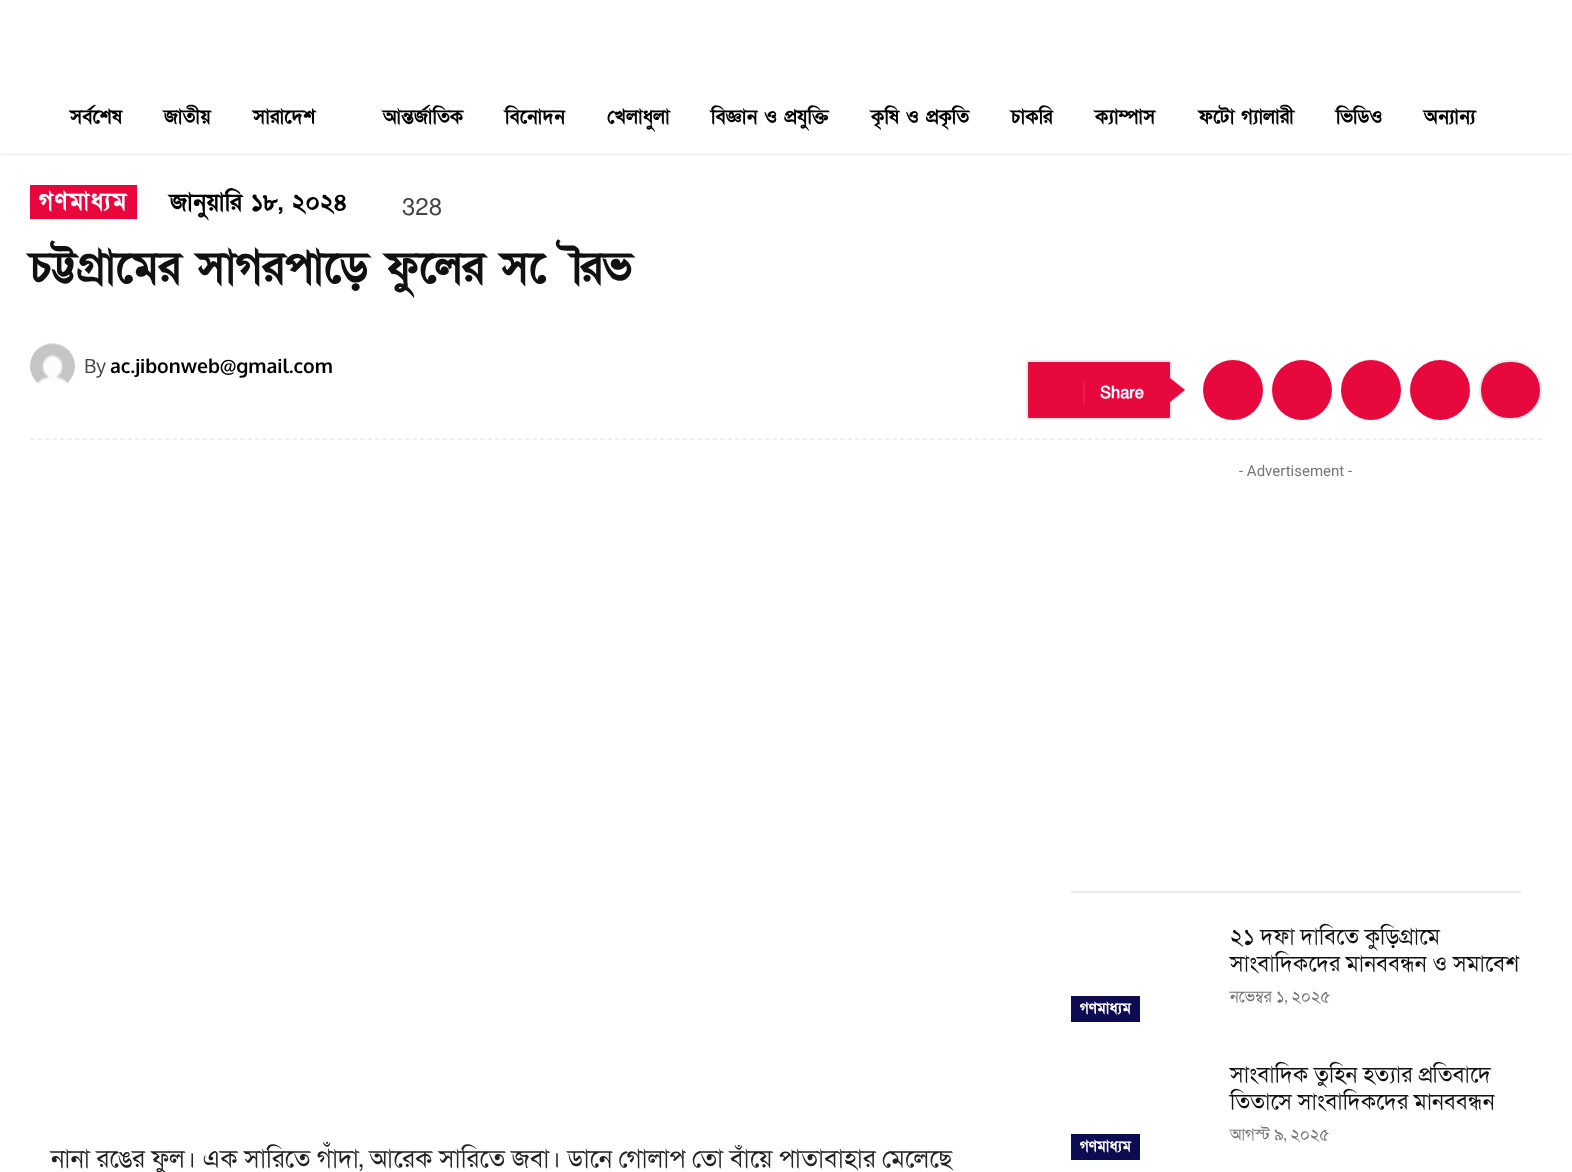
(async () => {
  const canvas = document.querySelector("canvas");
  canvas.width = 1572;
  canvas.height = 1172;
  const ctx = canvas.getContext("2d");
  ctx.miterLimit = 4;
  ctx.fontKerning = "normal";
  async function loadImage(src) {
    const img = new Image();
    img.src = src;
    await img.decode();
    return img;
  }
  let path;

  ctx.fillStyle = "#ffffff";
  ctx.fillRect(0, 0, 1572, 1172);
  ctx.save();
  ctx.beginPath();
  ctx.rect(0, 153, 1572, 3);
  ctx.clip();
  ctx.fillStyle = "rgba(0, 0, 0, 0.05)";
  ctx.filter = "blur(2px)";
  ctx.beginPath();
  ctx.rect(0, 84, 1572, 72);
  ctx.fill();
  ctx.filter = "none";
  ctx.restore();
  ctx.fillStyle = "#e9063d";
  ctx.fillRect(30, 185, 107, 34);
  ctx.drawImage(await loadImage("img/1.png"), 30, 343, 45, 41);
  ctx.fillStyle = "#e7083e";
  ctx.beginPath();
  ctx.roundRect(1027, 361, 144, 58, 2);
  ctx.fill();
  ctx.strokeStyle = "#e9e9e9";
  ctx.lineWidth = 2;
  ctx.stroke();
  ctx.fillStyle = "#e9e9e9";
  path = new Path2D("M1170 403.5V376.5L1186.5 390Z");
  ctx.fill(path);
  ctx.fillStyle = "#e91c4d";
  ctx.fillRect(1083, 381, 2, 24);
  ctx.fillStyle = "#e7083e";
  path = new Path2D("M1170 402V378L1185 390Z");
  ctx.fill(path);
  ctx.beginPath();
  ctx.arc(1233, 390, 30, 0, Math.PI * 2);
  ctx.fill();
  ctx.beginPath();
  ctx.arc(1302, 390, 30, 0, Math.PI * 2);
  ctx.fill();
  ctx.beginPath();
  ctx.arc(1371, 390, 30, 0, Math.PI * 2);
  ctx.fill();
  ctx.beginPath();
  ctx.arc(1440, 390, 30, 0, Math.PI * 2);
  ctx.fill();
  ctx.beginPath();
  ctx.roundRect(1480, 361, 61, 58, 29);
  ctx.fill();
  ctx.stroke();
  path = new Path2D("M30 439H1542");
  ctx.strokeStyle = "#ebebeb";
  ctx.lineWidth = 1.5;
  ctx.setLineDash([4.5, 3]);
  ctx.stroke(path);
  for (const [x, y, w, h, color] of [
    [1071, 891, 450, 2, "#eaeaea"],
    [1071, 996, 69, 26, "#0d0b52"],
    [1071, 1134, 69, 26, "#0d0b52"],
  ]) {
    ctx.fillStyle = color;
    ctx.fillRect(x, y, w, h);
  }
  ctx.font = "bold 19.5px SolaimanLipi";
  ctx.fillStyle = "#000000";
  for (const [text, x, y] of [
    ["সর্বশেষ", 70, 123],
    ["জাতীয়", 164, 123],
    ["সারাদেশ", 253, 123],
    ["আন্তর্জাতিক", 383, 123],
    ["বিনোদন", 505, 123],
    ["খেলাধুলা", 607, 123],
    ["বিজ্ঞান ও প্রযুক্তি", 711, 123],
    ["কৃষি ও প্রকৃতি", 871, 123],
    ["চাকরি", 1011, 123],
    ["ক্যাম্পাস", 1095, 123],
    ["ফটো গ্যালারী", 1198, 123],
    ["ভিডিও", 1336, 123],
    ["অন্যান্য", 1424, 123],
  ]) {
    ctx.fillText(text, x, y);
  }
  ctx.letterSpacing = "1.5px";
  ctx.font = "bold 24px SolaimanLipi";
  ctx.fillStyle = "#ffffff";
  ctx.fillText("গণমাধ্যম", 39, 209);
  ctx.letterSpacing = "0px";
  ctx.fillStyle = "#000000";
  ctx.fillText("জানুয়ারি ১৮, ২০২৪", 170, 210);
  ctx.font = "24px SolaimanLipi";
  ctx.fillStyle = "#444444";
  ctx.fillText("328", 402, 215);
  ctx.font = "bold 45px SolaimanLipi";
  ctx.fillStyle = "#111111";
  ctx.fillText("চট্টগ্রামের সাগরপাড়ে ফুলের সৌরভ", 30, 282);
  ctx.font = "19.5px Oxygen";
  ctx.fillStyle = "#444444";
  ctx.fillText("By", 84, 373);
  ctx.font = "bold 19.5px Oxygen";
  ctx.fillStyle = "#000000";
  ctx.fillText("ac.jibonweb@gmail.com", 110, 373);
  ctx.font = "bold 16.5px SolaimanLipi";
  ctx.fillStyle = "#ffffff";
  ctx.fillText("Share", 1100, 398);
  ctx.font = "15px Roboto";
  ctx.fillStyle = "#767676";
  ctx.fillText("- Advertisement -", 1239, 476);
  ctx.font = "22.5px SolaimanLipi";
  ctx.fillStyle = "#111111";
  ctx.fillText("২১ দফা দাবিতে কুড়িগ্রামে", 1230, 944);
  ctx.fillText("সাংবাদিকদের মানববন্ধন ও সমাবেশ", 1230, 971);
  ctx.font = "16.5px SolaimanLipi";
  ctx.fillStyle = "#767676";
  ctx.fillText("নভেম্বর ১, ২০২৫", 1230, 1002);
  ctx.font = "bold 15px SolaimanLipi";
  ctx.fillStyle = "#ffffff";
  ctx.fillText("গণমাধ্যম", 1080, 1013);
  ctx.font = "22.5px SolaimanLipi";
  ctx.fillStyle = "#111111";
  ctx.fillText("সাংবাদিক তুহিন হত্যার প্রতিবাদে", 1230, 1082);
  ctx.fillText("তিতাসে সাংবাদিকদের মানববন্ধন", 1230, 1109);
  ctx.font = "16.5px SolaimanLipi";
  ctx.fillStyle = "#767676";
  ctx.fillText("আগস্ট ৯, ২০২৫", 1230, 1140);
  ctx.font = "bold 15px SolaimanLipi";
  ctx.fillStyle = "#ffffff";
  ctx.fillText("গণমাধ্যম", 1080, 1151);
  ctx.font = "25.5px SolaimanLipi";
  ctx.fillStyle = "#222222";
  ctx.fillText("নানা রঙের ফুল। এক সারিতে গাঁদা, আরেক সারিতে জবা। ডানে গোলাপ তো বাঁয়ে পাতাবাহার মেলেছে", 51, 1167);
})();
